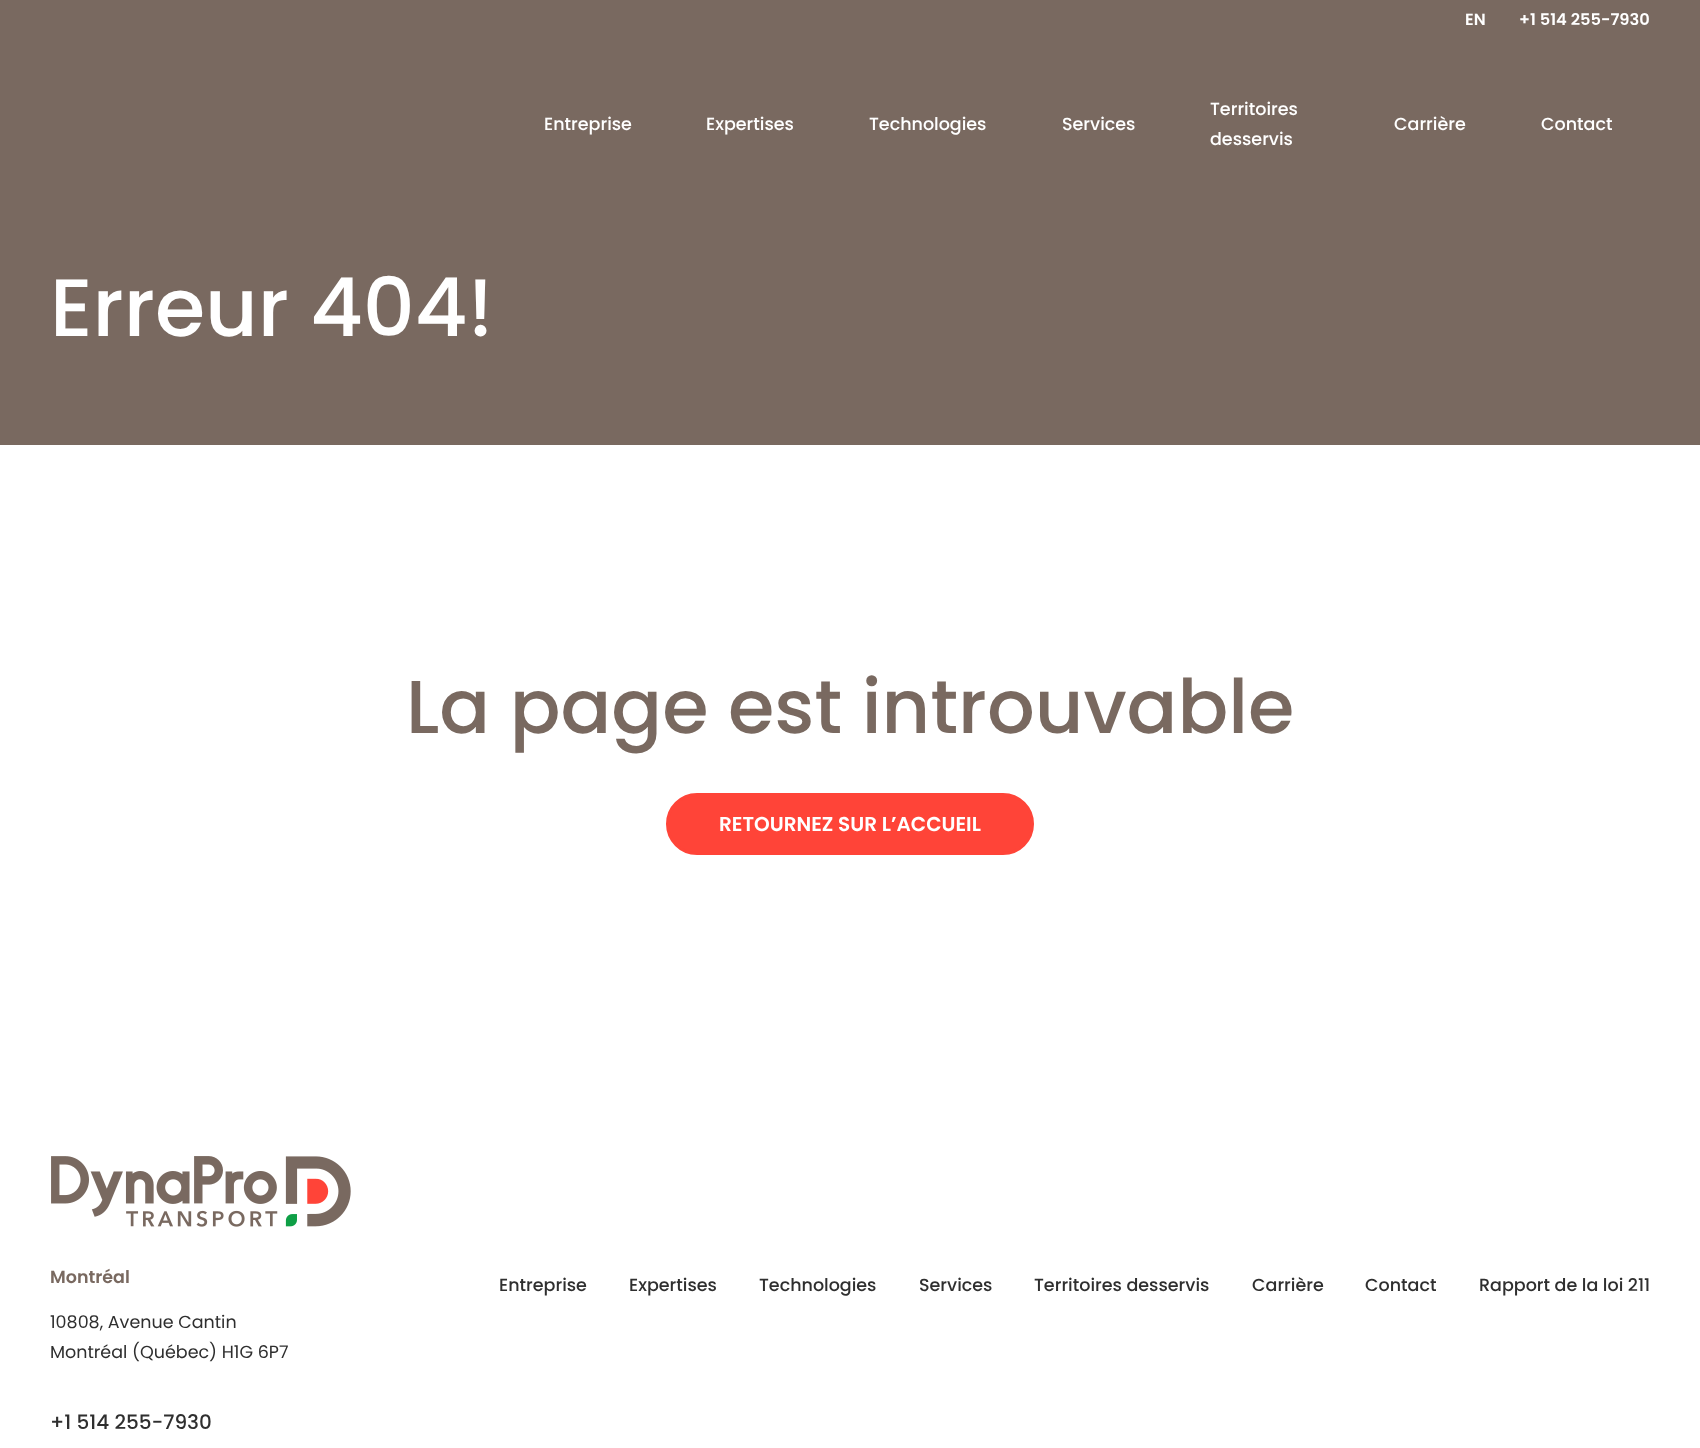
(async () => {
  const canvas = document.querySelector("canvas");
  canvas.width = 1700;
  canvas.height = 1448;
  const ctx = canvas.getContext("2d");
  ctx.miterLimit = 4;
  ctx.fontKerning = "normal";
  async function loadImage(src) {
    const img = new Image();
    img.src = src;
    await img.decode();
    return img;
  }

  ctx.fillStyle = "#ffffff";
  ctx.fillRect(0, 0, 1700, 1448);
  ctx.fillStyle = "#796960";
  ctx.fillRect(0, 0, 1700, 445);
  ctx.fillStyle = "#ff4438";
  ctx.beginPath();
  ctx.roundRect(667.5, 794.5, 365, 59, 29.5);
  ctx.fill();
  ctx.strokeStyle = "#ff4438";
  ctx.lineWidth = 3;
  ctx.stroke();
  ctx.drawImage(await loadImage("img/1.png"), 51, 1156, 300, 71);
  ctx.font = "600 16.25px Poppins";
  ctx.fillStyle = "#ffffff";
  ctx.fillText("EN", 1465, 25);
  ctx.fillText("+1 514 255-7930", 1519, 25);
  ctx.font = "500 17.5px Poppins";
  for (const [text, x, y] of [
    ["Entreprise", 544, 130],
    ["Expertises", 706, 130],
    ["Technologies", 869, 130],
    ["Services", 1062, 130],
    ["Territoires", 1210, 115],
    ["desservis", 1210, 145],
    ["Carrière", 1394, 130],
    ["Contact", 1541, 130],
  ]) {
    ctx.fillText(text, x, y);
  }
  ctx.font = "500 81.25px Poppins";
  ctx.fillText("Erreur 404!", 50, 336);
  ctx.font = "500 75px Poppins";
  ctx.fillStyle = "#796960";
  ctx.fillText("La page est introuvable", 406, 733);
  ctx.font = "600 20px Poppins";
  ctx.fillStyle = "#ffffff";
  ctx.fillText("RETOURNEZ SUR L’ACCUEIL", 719, 831);
  ctx.font = "600 17.5px Poppins";
  ctx.fillStyle = "#796960";
  ctx.fillText("Montréal", 50, 1283);
  ctx.font = "17.5px Poppins";
  ctx.fillStyle = "#2f2f2f";
  ctx.fillText("10808, Avenue Cantin", 50, 1328);
  ctx.fillText("Montréal (Québec) H1G 6P7", 50, 1358);
  ctx.font = "500 20px Poppins";
  ctx.fillText("+1 514 255-7930", 50, 1429);
  ctx.font = "500 17.5px Poppins";
  for (const [text, x, y] of [
    ["Entreprise", 499, 1291],
    ["Expertises", 629, 1291],
    ["Technologies", 759, 1291],
    ["Services", 919, 1291],
    ["Territoires desservis", 1034, 1291],
    ["Carrière", 1252, 1291],
    ["Contact", 1365, 1291],
    ["Rapport de la loi 211", 1479, 1291],
  ]) {
    ctx.fillText(text, x, y);
  }
})();
